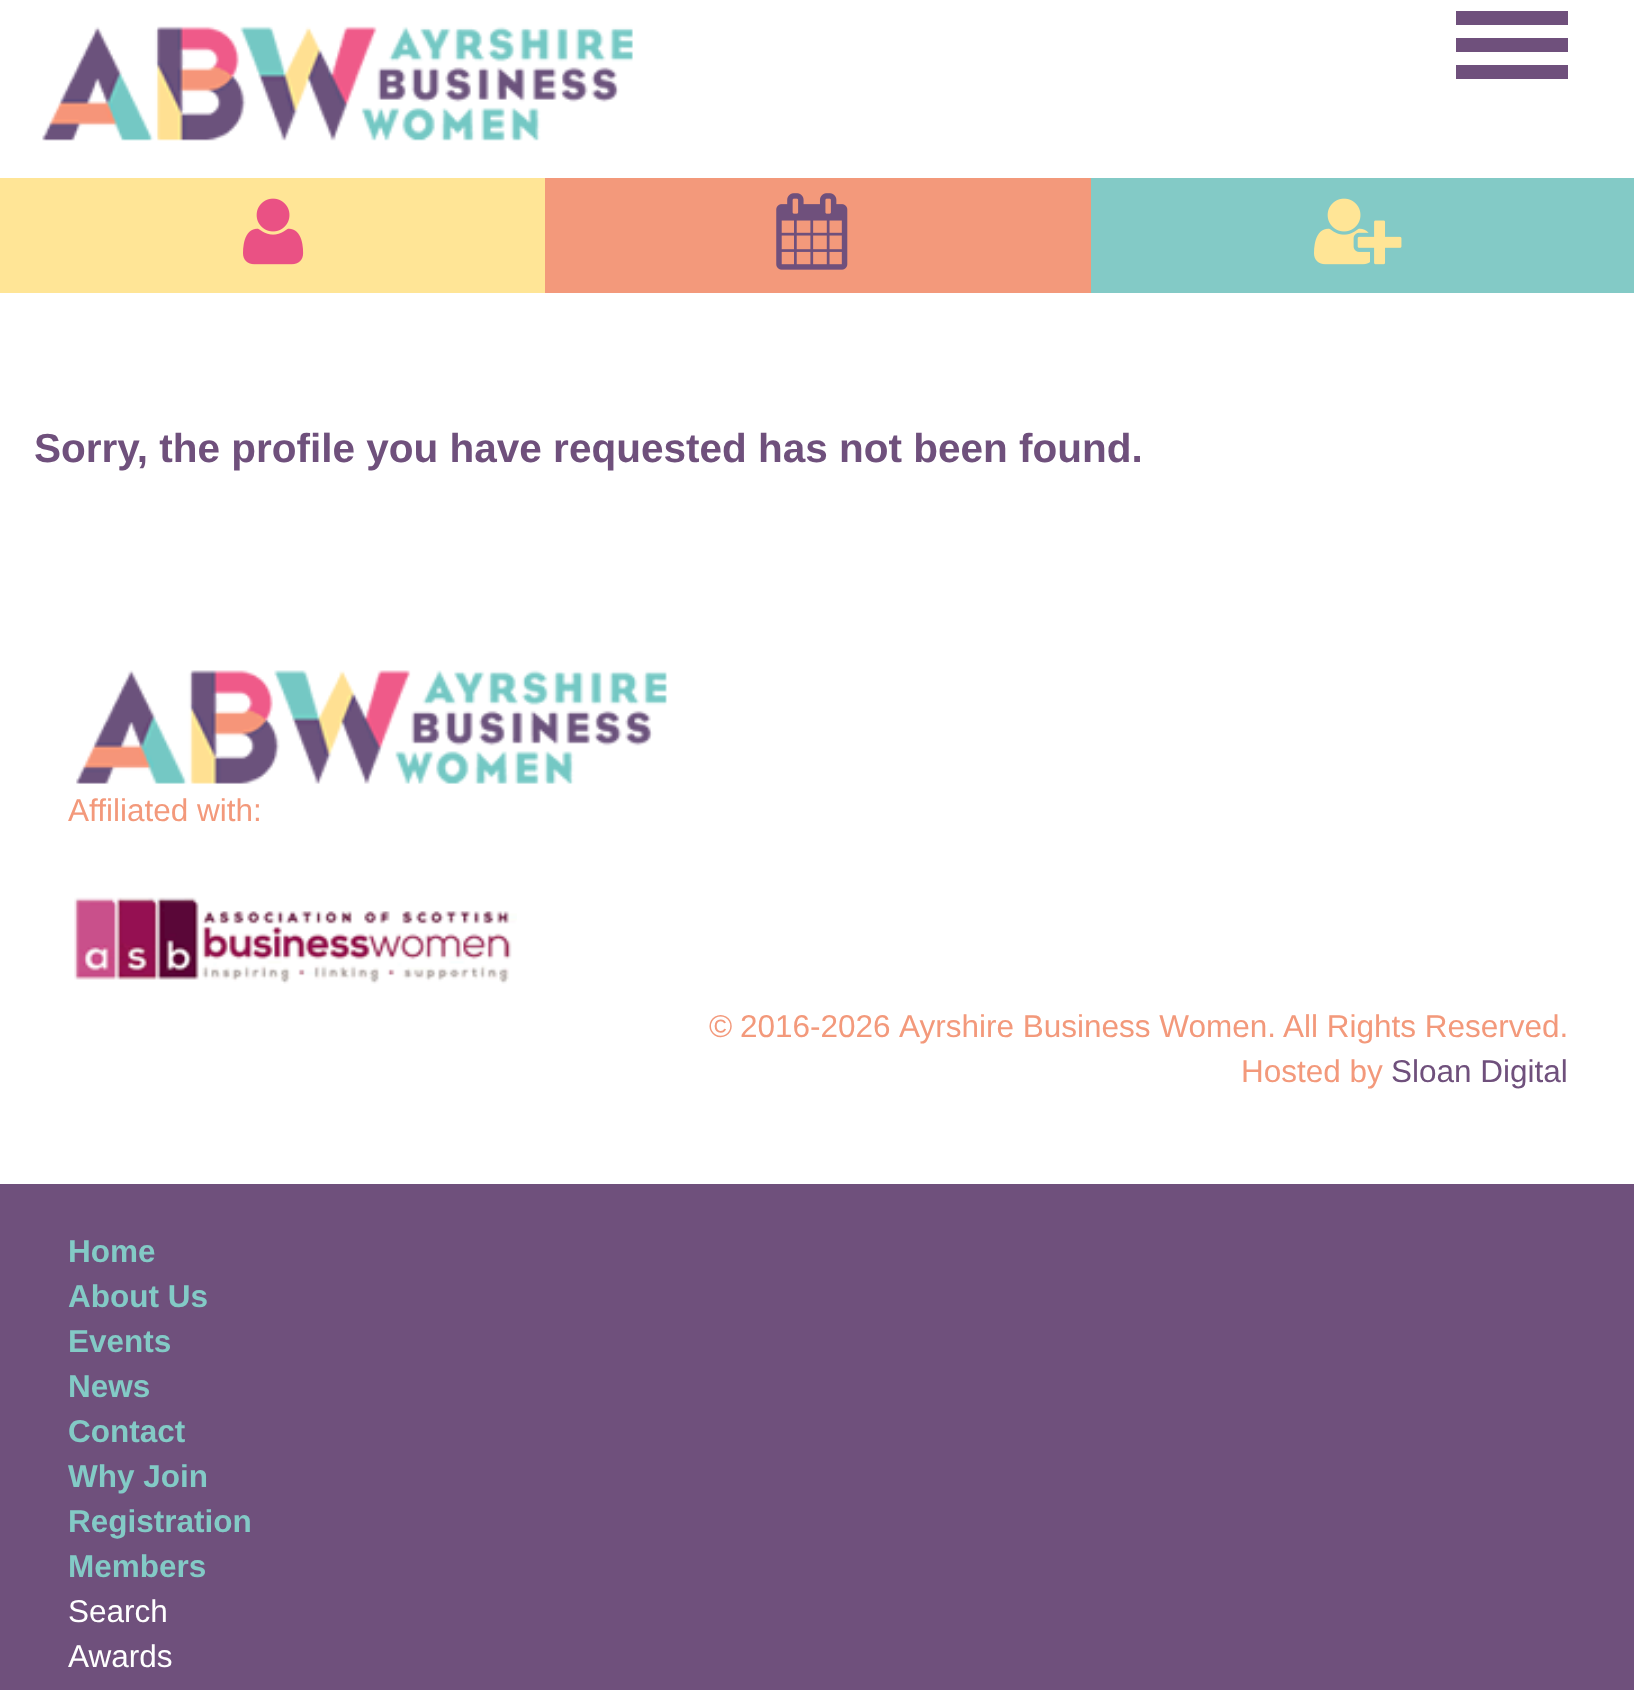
(async () => {
  const canvas = document.querySelector("canvas");
  canvas.width = 1634;
  canvas.height = 1690;
  const ctx = canvas.getContext("2d");
  ctx.miterLimit = 4;
  ctx.fontKerning = "normal";
  async function loadImage(src) {
    const img = new Image();
    img.src = src;
    await img.decode();
    return img;
  }

  ctx.fillStyle = "#ffffff";
  ctx.fillRect(0, 0, 1634, 1690);
  for (const [x, y, w, h, color] of [
    [1456, 38, 112, 14, "#6f507c"],
    [1456, 11, 112, 14, "#6f507c"],
    [1456, 65, 112, 14, "#6f507c"],
  ]) {
    ctx.fillStyle = color;
    ctx.fillRect(x, y, w, h);
  }
  ctx.drawImage(await loadImage("img/1.png"), 42, 26, 591, 115);
  ctx.fillStyle = "#ffe596";
  ctx.fillRect(0, 178, 545, 115);
  ctx.drawImage(await loadImage("img/2.png"), 243, 198, 61, 67);
  ctx.fillStyle = "#f3997b";
  ctx.fillRect(545, 178, 546, 115);
  ctx.drawImage(await loadImage("img/3.png"), 776, 193, 72, 77);
  ctx.fillStyle = "#83cac6";
  ctx.fillRect(1091, 178, 543, 115);
  ctx.drawImage(await loadImage("img/4.png"), 1314, 198, 88, 67);
  ctx.fillStyle = "#6f507c";
  ctx.fillRect(0, 1184, 1634, 506);
  ctx.drawImage(await loadImage("img/5.png"), 76, 670, 591, 114);
  ctx.drawImage(await loadImage("img/6.png"), 74, 897, 443, 87);
  ctx.font = "bold 40.5px Liberation Sans";
  ctx.fillText("Sorry, the profile you have requested has not been found.", 34, 462);
  ctx.font = "31.5px Liberation Sans";
  ctx.fillStyle = "#f3997b";
  ctx.fillText("Affiliated with:", 68, 821);
  ctx.wordSpacing = "-1px";
  ctx.fillText("© 2016-2026", 709, 1037);
  ctx.wordSpacing = "0px";
  ctx.fillText("Ayrshire Business Women. All Rights Reserved.", 899, 1037);
  ctx.fillText("Hosted by", 1241, 1082);
  ctx.fillStyle = "#6f507c";
  ctx.fillText("Sloan Digital", 1391, 1082);
  ctx.font = "bold 31.5px Liberation Sans";
  ctx.fillStyle = "#83cac6";
  for (const [text, x, y] of [
    ["Home", 68, 1262],
    ["About Us", 68, 1307],
    ["Events", 68, 1352],
    ["News", 68, 1397],
    ["Contact", 68, 1442],
    ["Why Join", 68, 1487],
    ["Registration", 68, 1532],
    ["Members", 68, 1577],
  ]) {
    ctx.fillText(text, x, y);
  }
  ctx.font = "31.5px Liberation Sans";
  ctx.fillStyle = "#ffffff";
  ctx.fillText("Search", 68, 1622);
  ctx.fillText("Awards", 68, 1667);
})();
